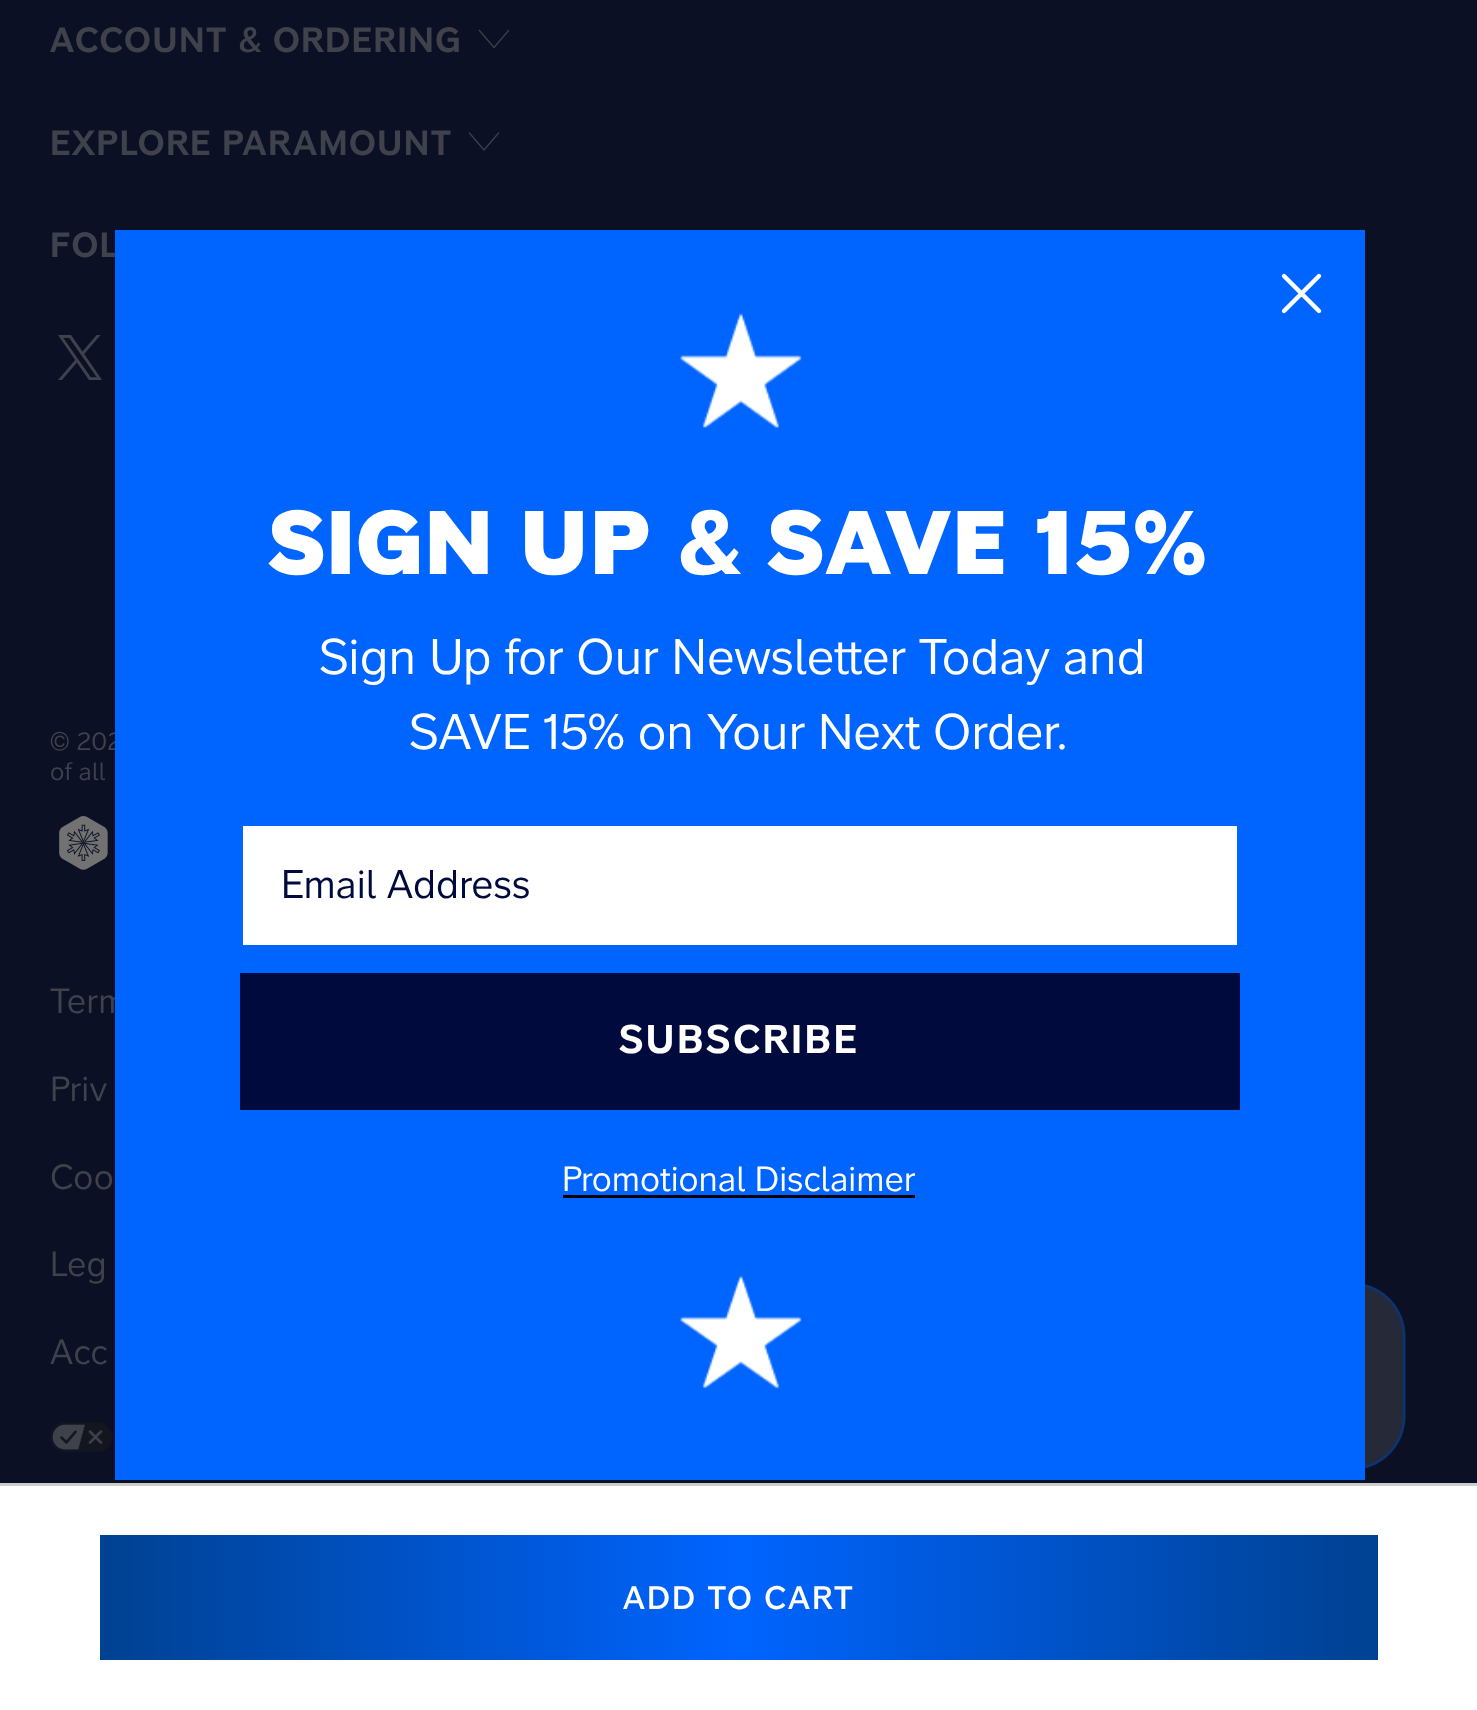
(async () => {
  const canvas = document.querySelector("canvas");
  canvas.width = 1477;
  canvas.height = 1710;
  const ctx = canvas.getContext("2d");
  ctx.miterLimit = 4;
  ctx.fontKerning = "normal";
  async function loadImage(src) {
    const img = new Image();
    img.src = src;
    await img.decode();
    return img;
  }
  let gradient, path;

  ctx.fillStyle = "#0c1024";
  ctx.fillRect(0, 0, 1477, 1710);
  path = new Path2D("M479 30L494 47.5L509 30");
  ctx.strokeStyle = "#3f414b";
  ctx.lineWidth = 1.2;
  ctx.stroke(path);
  path = new Path2D("M469 132.5L484 150L499 132.5");
  ctx.stroke(path);
  ctx.drawImage(await loadImage("img/1.png"), 58, 335, 44, 45);
  ctx.drawImage(await loadImage("img/2.png"), 59, 816, 49, 54);
  ctx.drawImage(await loadImage("img/3.png"), 50, 1422, 63, 30);
  ctx.drawImage(await loadImage("img/6.png"), 1365, 1284, 41, 185);
  ctx.fillStyle = "#ffffff";
  ctx.fillRect(0, 1486, 1477, 224);
  ctx.fillStyle = "#cccccc";
  ctx.fillRect(0, 1483, 1477, 3);
  gradient = ctx.createLinearGradient(100, 1598, 1378, 1598);
  gradient.addColorStop(0, "#004191");
  gradient.addColorStop(0.5, "#0064ff");
  gradient.addColorStop(1, "#004191");
  ctx.fillStyle = gradient;
  ctx.fillRect(100, 1535, 1278, 125);
  ctx.letterSpacing = "1.4px";
  ctx.font = "bold 35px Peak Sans";
  ctx.fillStyle = "#3f414b";
  for (const [text, x, y] of [
    ["ACCOUNT & ORDERING", 50, 52],
    ["EXPLORE PARAMOUNT", 50, 155],
    ["FOL", 50, 257],
  ]) {
    ctx.fillText(text, x, y);
  }
  ctx.letterSpacing = "0.25px";
  ctx.font = "25px Peak Sans";
  ctx.fillText("© 202", 50, 750);
  ctx.fillText("of all", 50, 780);
  ctx.letterSpacing = "0.5px";
  ctx.font = "35px Peak Sans";
  for (const [text, x, y] of [
    ["Term", 50, 1013],
    ["Priv", 50, 1101],
    ["Coo", 50, 1189],
    ["Leg", 50, 1276],
    ["Acc", 50, 1364],
  ]) {
    ctx.fillText(text, x, y);
  }
  ctx.fillStyle = "#0064ff";
  ctx.fillRect(115, 230, 1250, 1250);
  path = new Path2D("M1284 276L1319 311M1284 311L1319 276Z");
  ctx.strokeStyle = "#ffffff";
  ctx.lineWidth = 4.4;
  ctx.lineCap = "round";
  ctx.lineJoin = "round";
  ctx.stroke(path);
  ctx.drawImage(await loadImage("img/4.png"), 680, 313, 122, 116);
  ctx.letterSpacing = "2.5px";
  ctx.font = "900 90px Peak Sans";
  ctx.fillStyle = "#ffffff";
  ctx.fillText("SIGN UP & SAVE 15%", 269, 574);
  ctx.letterSpacing = "0px";
  ctx.font = "50px Peak Sans";
  ctx.fillText("Sign Up for Our Newsletter Today and", 319, 674);
  ctx.fillText("SAVE 15% on Your Next Order.", 409, 749);
  ctx.fillRect(243, 826, 994, 119);
  ctx.font = "40px Peak Sans";
  ctx.fillStyle = "#000a3c";
  ctx.fillText("Email Address", 281, 898);
  ctx.fillRect(240, 973, 1000, 137);
  ctx.letterSpacing = "2.5px";
  ctx.font = "bold 40px Peak Sans";
  ctx.fillStyle = "#ffffff";
  ctx.fillText("SUBSCRIBE", 619, 1053);
  ctx.letterSpacing = "0px";
  ctx.font = "35px Peak Sans";
  ctx.fillText("Promotional Disclaimer", 562, 1191);
  ctx.fillStyle = "#000000";
  ctx.fillRect(563, 1195, 352, 3);
  ctx.drawImage(await loadImage("img/5.png"), 680, 1276, 122, 113);
  ctx.letterSpacing = "2px";
  ctx.font = "600 32.5px Peak Sans";
  ctx.fillStyle = "#ffffff";
  ctx.fillText("ADD TO CART", 623, 1609);
})();
